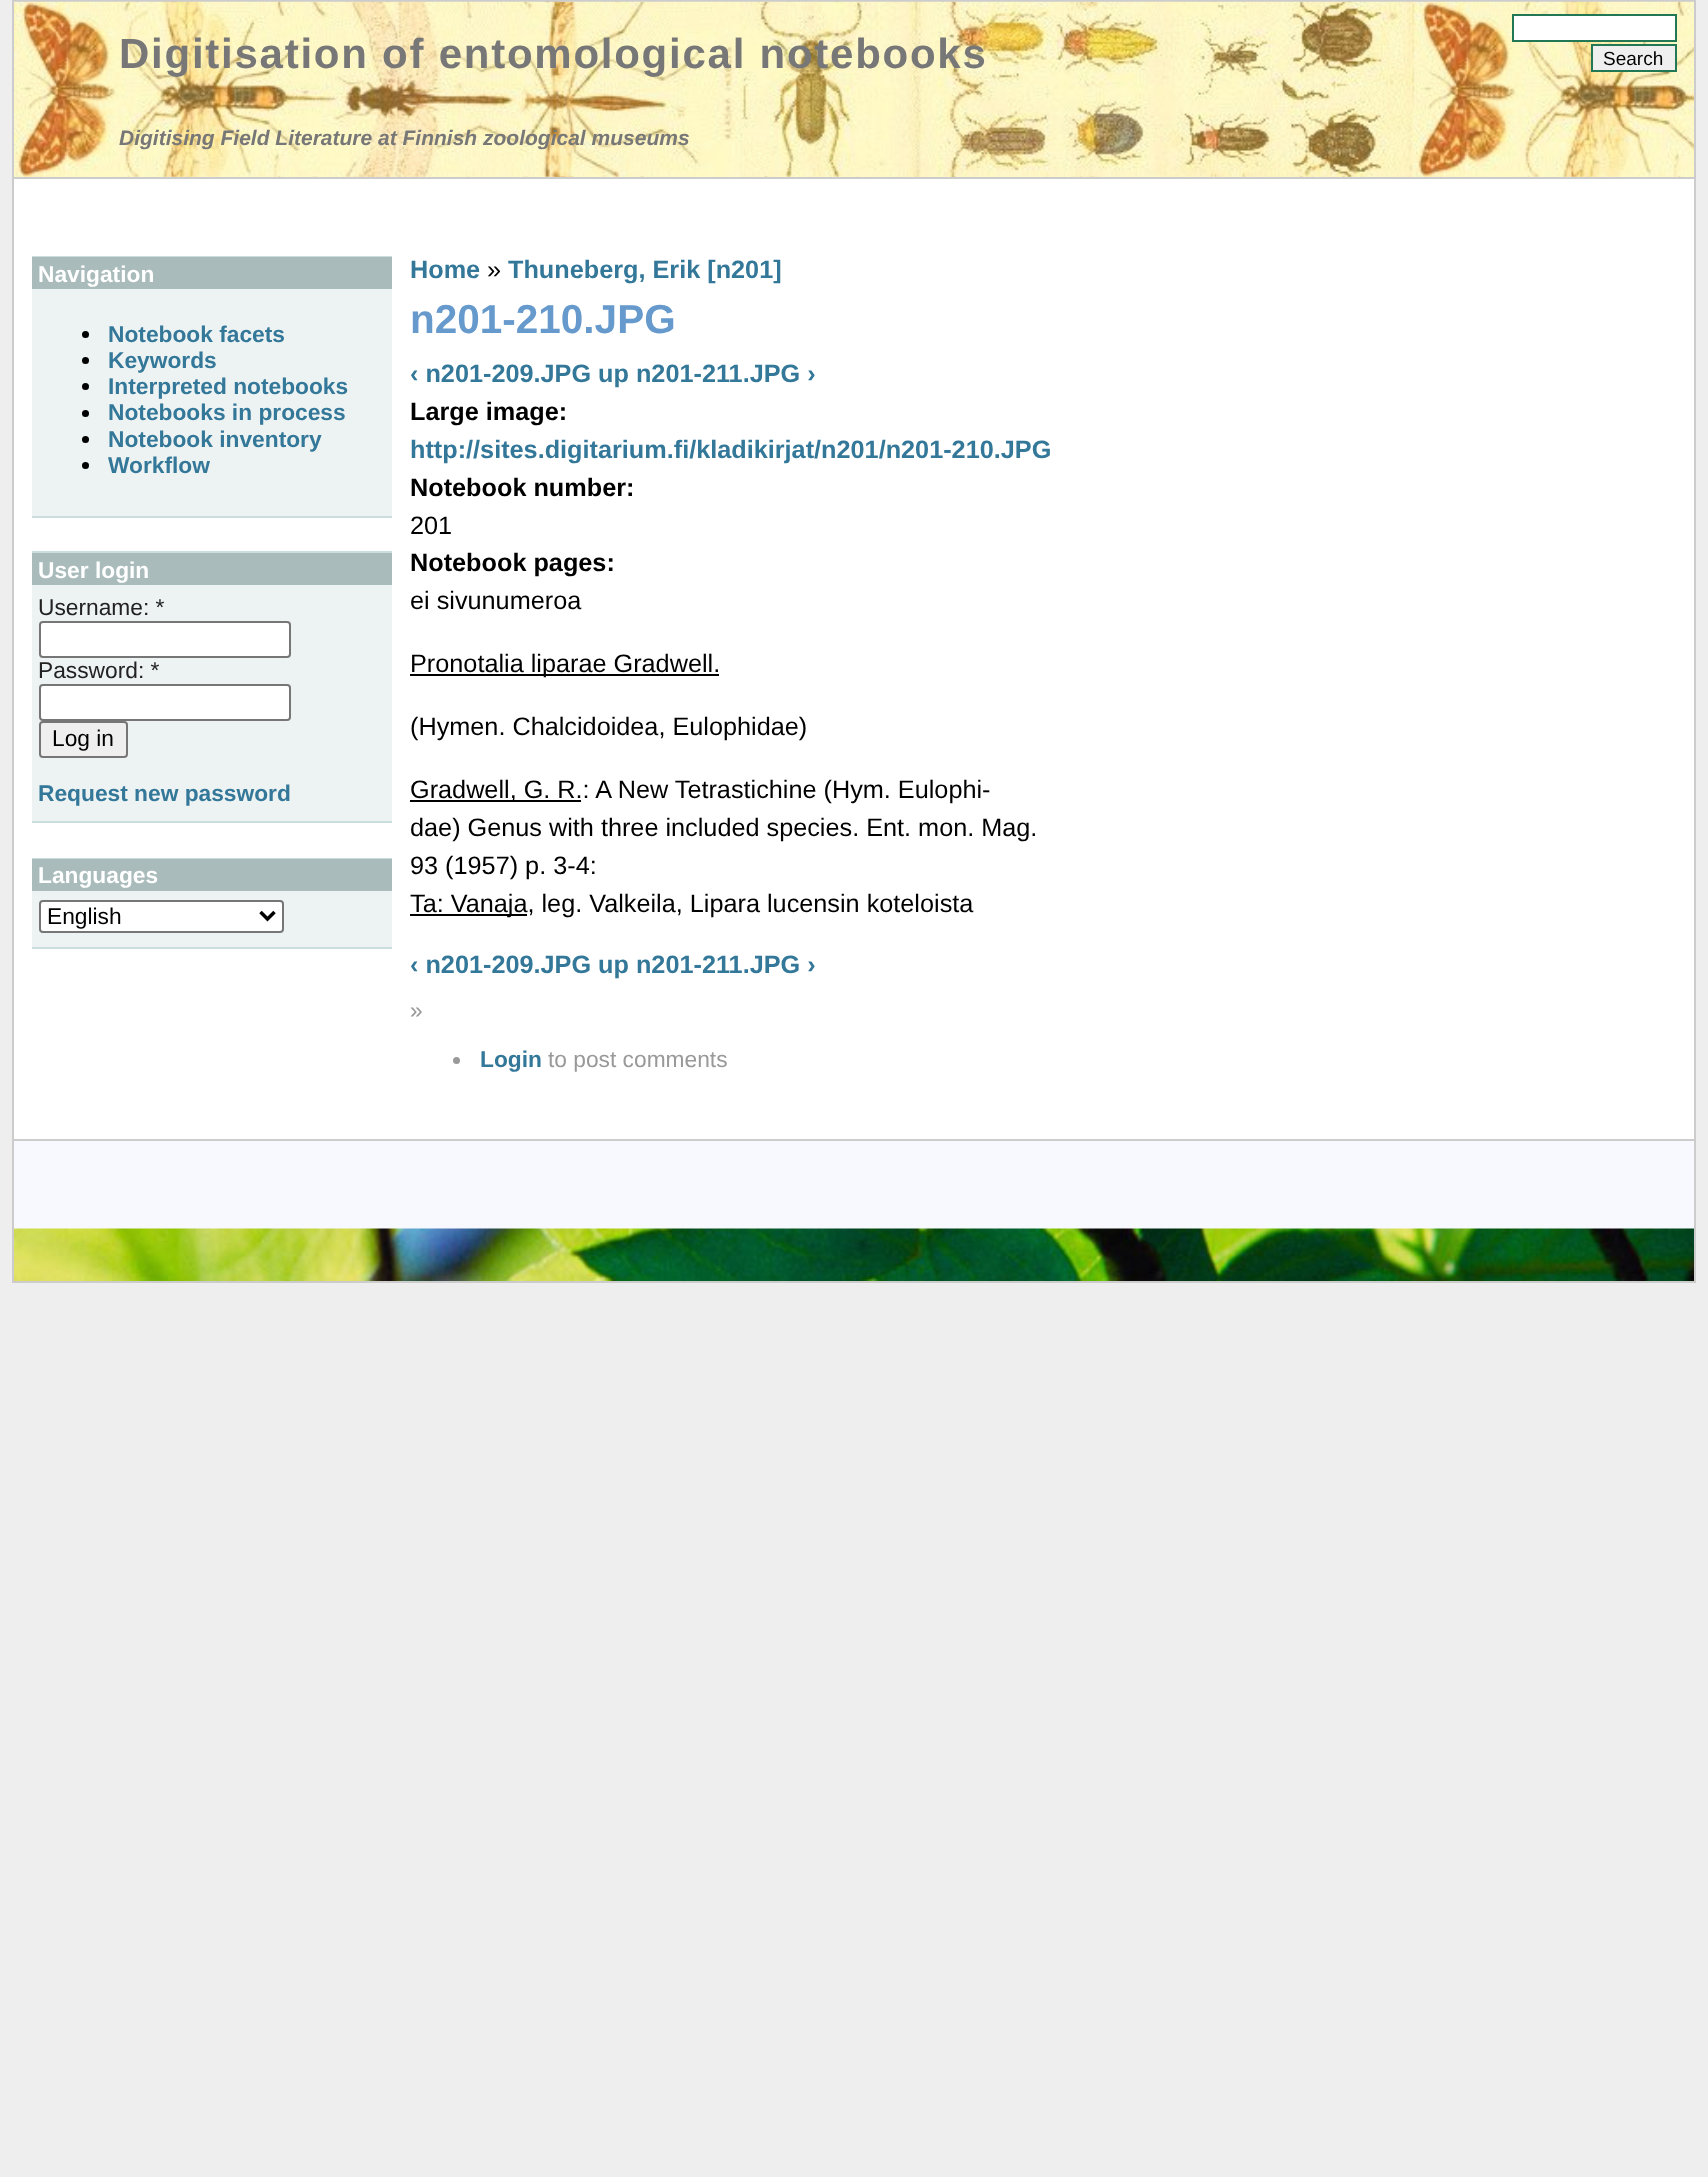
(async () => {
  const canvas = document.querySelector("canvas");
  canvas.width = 1708;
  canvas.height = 2177;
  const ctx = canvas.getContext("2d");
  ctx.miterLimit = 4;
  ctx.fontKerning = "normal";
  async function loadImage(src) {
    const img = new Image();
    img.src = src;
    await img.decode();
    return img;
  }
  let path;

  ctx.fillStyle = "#eeeeee";
  ctx.fillRect(0, 0, 1708, 2177);
  ctx.fillStyle = "#ffffff";
  ctx.fillRect(14, 179, 1680, 960);
  ctx.strokeStyle = "#cccccc";
  ctx.lineWidth = 2;
  ctx.strokeRect(13, 1, 1682, 1281);
  ctx.drawImage(await loadImage("img/1.png"), 14, 1, 1680, 176);
  ctx.fillStyle = "#cccccc";
  ctx.fillRect(14, 177, 1680, 2);
  ctx.fillStyle = "#ffffff";
  ctx.beginPath();
  ctx.rect(1513, 15, 163, 26);
  ctx.fill();
  ctx.strokeStyle = "#227755";
  ctx.stroke();
  ctx.fillStyle = "#efefef";
  ctx.beginPath();
  ctx.rect(1592, 45, 84, 26);
  ctx.fill();
  ctx.stroke();
  for (const [x, y, w, h, color] of [
    [32, 289, 360, 227, "#edf2f2"],
    [32, 256, 360, 1, "#ccdddd"],
    [32, 516, 360, 2, "#ccdddd"],
    [32, 257, 360, 32, "#aabbbb"],
  ]) {
    ctx.fillStyle = color;
    ctx.fillRect(x, y, w, h);
  }
  ctx.fillStyle = "#000000";
  ctx.beginPath();
  ctx.arc(85.5, 334.5, 3.5, 0, Math.PI * 2);
  ctx.fill();
  ctx.beginPath();
  ctx.arc(85.5, 360.5, 3.5, 0, Math.PI * 2);
  ctx.fill();
  ctx.beginPath();
  ctx.arc(85.5, 386.5, 3.5, 0, Math.PI * 2);
  ctx.fill();
  ctx.beginPath();
  ctx.arc(85.5, 413.5, 3.5, 0, Math.PI * 2);
  ctx.fill();
  ctx.beginPath();
  ctx.arc(85.5, 439.5, 3.5, 0, Math.PI * 2);
  ctx.fill();
  ctx.beginPath();
  ctx.arc(85.5, 465.5, 3.5, 0, Math.PI * 2);
  ctx.fill();
  for (const [x, y, w, h, color] of [
    [32, 585, 360, 236, "#edf2f2"],
    [32, 551, 360, 2, "#ccdddd"],
    [32, 821, 360, 2, "#ccdddd"],
    [32, 553, 360, 32, "#aabbbb"],
  ]) {
    ctx.fillStyle = color;
    ctx.fillRect(x, y, w, h);
  }
  ctx.fillStyle = "#ffffff";
  ctx.beginPath();
  ctx.roundRect(40, 622, 250, 35, 3);
  ctx.fill();
  ctx.strokeStyle = "#767676";
  ctx.stroke();
  ctx.beginPath();
  ctx.roundRect(40, 685, 250, 35, 3);
  ctx.fill();
  ctx.stroke();
  ctx.fillStyle = "#efefef";
  ctx.beginPath();
  ctx.roundRect(40, 722, 87, 35, 3);
  ctx.fill();
  ctx.stroke();
  for (const [x, y, w, h, color] of [
    [32, 891, 360, 56, "#edf2f2"],
    [32, 858, 360, 1, "#ccdddd"],
    [32, 947, 360, 2, "#ccdddd"],
    [32, 859, 360, 32, "#aabbbb"],
  ]) {
    ctx.fillStyle = color;
    ctx.fillRect(x, y, w, h);
  }
  ctx.fillStyle = "#ffffff";
  ctx.beginPath();
  ctx.roundRect(40, 901, 243, 31, 3);
  ctx.fill();
  ctx.stroke();
  path = new Path2D("M260.5 912L267.5 919L274.5 912");
  ctx.strokeStyle = "#000000";
  ctx.lineWidth = 3.5;
  ctx.stroke(path);
  for (const [x, y, w, h, color] of [
    [410, 674, 309, 2, "#000000"],
    [410, 800, 171, 2, "#000000"],
    [410, 914, 117, 2, "#000000"],
  ]) {
    ctx.fillStyle = color;
    ctx.fillRect(x, y, w, h);
  }
  ctx.fillStyle = "#999999";
  ctx.beginPath();
  ctx.arc(456.5, 1060.5, 3.5, 0, Math.PI * 2);
  ctx.fill();
  ctx.fillStyle = "#f8f8ff";
  ctx.fillRect(14, 1141, 1680, 88);
  ctx.drawImage(await loadImage("img/2.png"), 14, 1228, 1680, 53);
  ctx.fillStyle = "#cccccc";
  ctx.fillRect(14, 1139, 1680, 2);
  ctx.letterSpacing = "1.75px";
  ctx.font = "bold 42px Liberation Sans";
  ctx.fillStyle = "#777777";
  ctx.fillText("Digitisation of entomological notebooks", 119, 68);
  ctx.letterSpacing = "0px";
  ctx.font = "italic bold 21px Liberation Sans";
  ctx.fillText("Digitising Field Literature at Finnish zoological museums", 119, 145);
  ctx.font = "19px Liberation Sans";
  ctx.fillStyle = "#000000";
  ctx.fillText("Search", 1603, 65);
  ctx.font = "bold 22.75px Liberation Sans";
  ctx.fillStyle = "#ffffff";
  ctx.fillText("Navigation", 38, 282);
  ctx.fillStyle = "#337799";
  for (const [text, x, y] of [
    ["Notebook facets", 108, 342],
    ["Keywords", 108, 368],
    ["Interpreted notebooks", 108, 394],
    ["Notebooks in process", 108, 420],
    ["Notebook inventory", 108, 447],
    ["Workflow", 108, 473],
  ]) {
    ctx.fillText(text, x, y);
  }
  ctx.fillStyle = "#ffffff";
  ctx.fillText("User login", 38, 578);
  ctx.font = "22.75px Liberation Sans";
  ctx.fillStyle = "#222222";
  ctx.fillText("Username: *", 38, 615);
  ctx.fillText("Password: *", 38, 678);
  ctx.fillStyle = "#000000";
  ctx.fillText("Log in", 52, 746);
  ctx.font = "bold 22.75px Liberation Sans";
  ctx.fillStyle = "#337799";
  ctx.fillText("Request new password", 38, 801);
  ctx.fillStyle = "#ffffff";
  ctx.fillText("Languages", 38, 883);
  ctx.font = "22.75px Liberation Sans";
  ctx.fillStyle = "#000000";
  ctx.fillText("English", 47, 924);
  ctx.font = "bold 25.25px Liberation Sans";
  ctx.fillStyle = "#337799";
  ctx.fillText("Home", 410, 278);
  ctx.font = "25.25px Liberation Sans";
  ctx.fillStyle = "#000000";
  ctx.fillText("»", 487, 278);
  ctx.font = "bold 25.25px Liberation Sans";
  ctx.fillStyle = "#337799";
  ctx.fillText("Thuneberg, Erik [n201]", 508, 278);
  ctx.font = "bold 40.5px Liberation Sans";
  ctx.fillStyle = "#6699cc";
  ctx.fillText("n201-210.JPG", 410, 333);
  ctx.font = "bold 25.25px Liberation Sans";
  ctx.fillStyle = "#337799";
  ctx.fillText("‹ n201-209.JPG up n201-211.JPG ›", 410, 382);
  ctx.fillStyle = "#000000";
  ctx.fillText("Large image:", 410, 420);
  ctx.fillStyle = "#337799";
  ctx.fillText("http://sites.digitarium.fi/kladikirjat/n201/n201-210.JPG", 410, 458);
  ctx.fillStyle = "#000000";
  ctx.fillText("Notebook number:", 410, 496);
  ctx.font = "25.25px Liberation Sans";
  ctx.fillText("201", 410, 534);
  ctx.font = "bold 25.25px Liberation Sans";
  ctx.fillText("Notebook pages:", 410, 571);
  ctx.font = "25.25px Liberation Sans";
  for (const [text, x, y] of [
    ["ei sivunumeroa", 410, 609],
    ["Pronotalia liparae Gradwell.", 410, 672],
    ["(Hymen. Chalcidoidea, Eulophidae)", 410, 735],
    ["Gradwell, G. R.: A New Tetrastichine (Hym. Eulophi-", 410, 798],
    ["dae) Genus with three included species. Ent. mon. Mag.", 410, 836],
    ["93 (1957) p. 3-4:", 410, 874],
    ["Ta: Vanaja, leg. Valkeila, Lipara lucensin koteloista", 410, 912],
  ]) {
    ctx.fillText(text, x, y);
  }
  ctx.font = "bold 25.25px Liberation Sans";
  ctx.fillStyle = "#337799";
  ctx.fillText("‹ n201-209.JPG up n201-211.JPG ›", 410, 973);
  ctx.font = "22.75px Liberation Sans";
  ctx.fillStyle = "#999999";
  ctx.fillText("»", 410, 1018);
  ctx.font = "bold 22.75px Liberation Sans";
  ctx.fillStyle = "#337799";
  ctx.fillText("Login", 480, 1067);
  ctx.font = "22.75px Liberation Sans";
  ctx.fillStyle = "#999999";
  ctx.fillText("to post comments", 548, 1067);
})();
